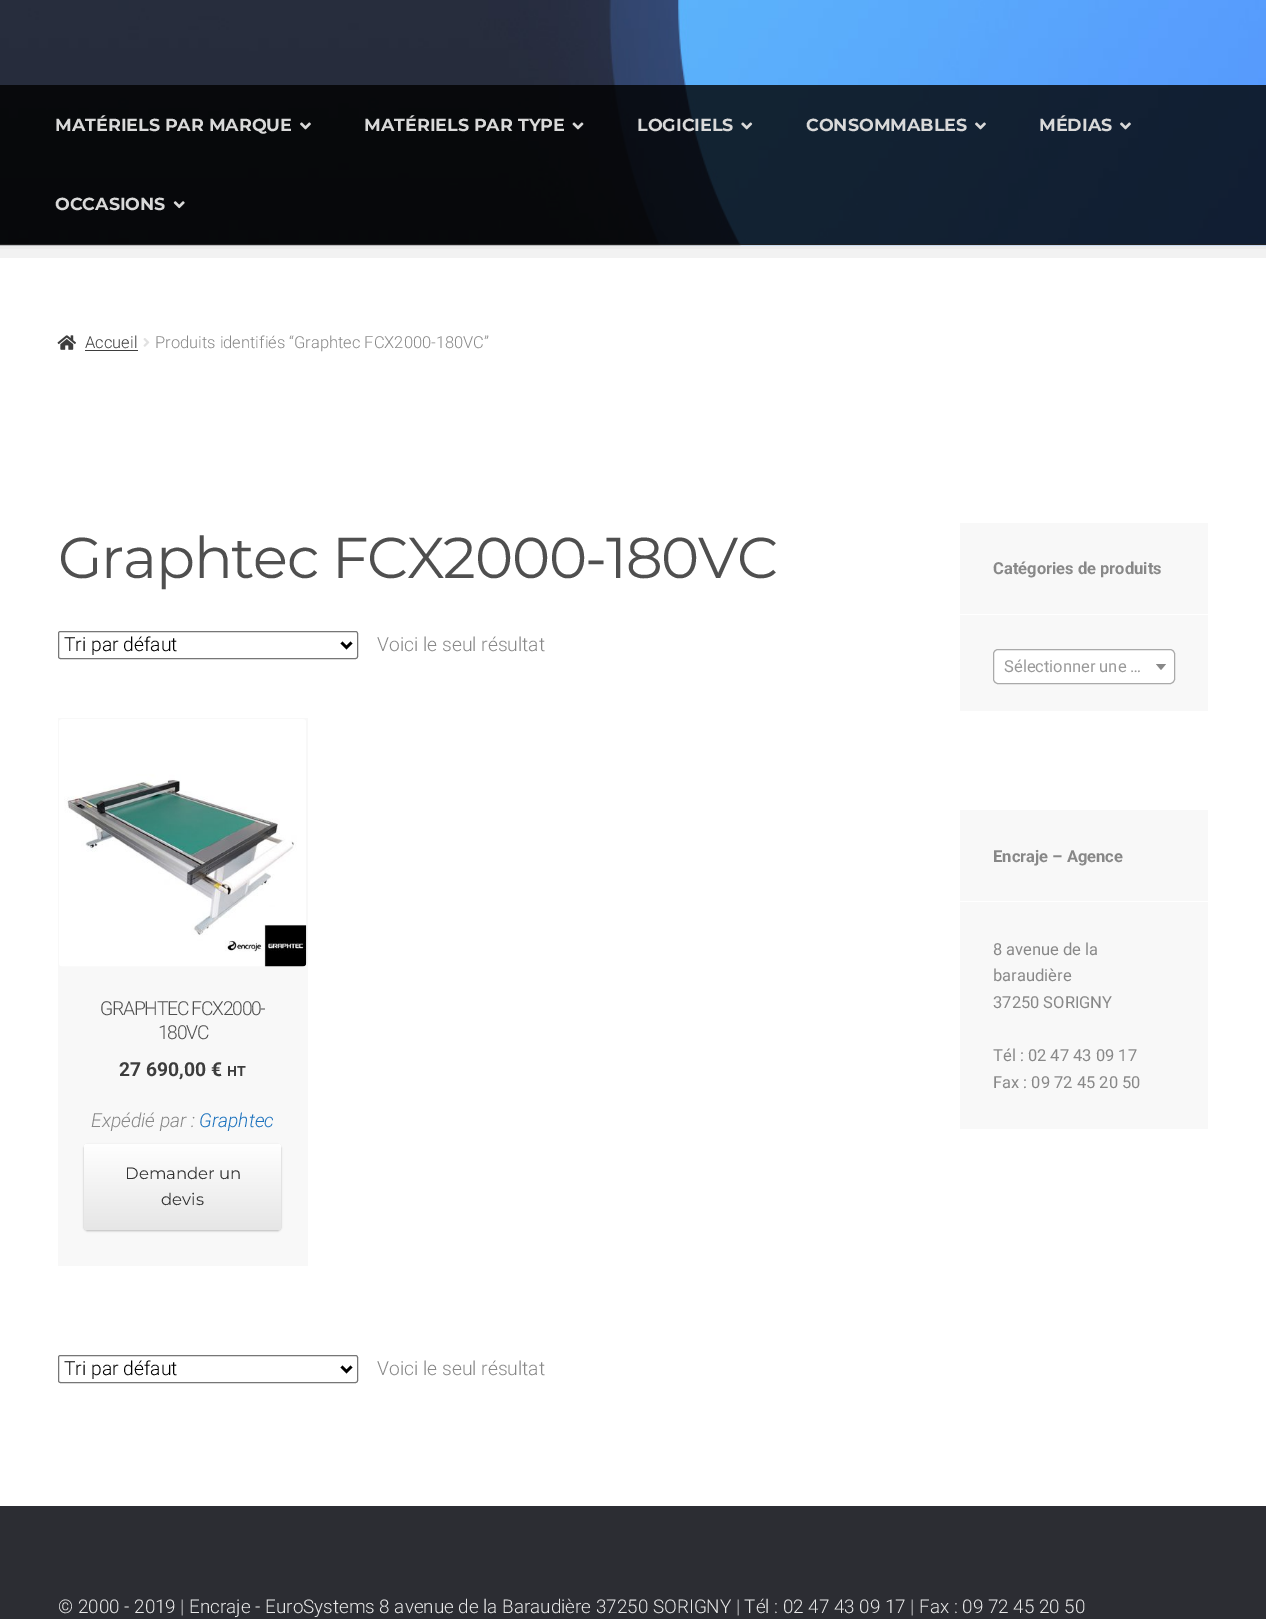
%!PS-Adobe-3.0
%%BoundingBox: 0 0 1266 1619
%%LanguageLevel: 3
%%Pages: 1
%%EndComments
%%BeginProlog
/setalpha { dup .setfillconstantalpha .setstrokeconstantalpha } def
/rrect { 5 dict begin { /r /h /w /y /x } { exch def } forall
  x r add y moveto x w add y 2 copy h add r arct x w add y h add x 1 index r arct
  x y h add x y r arct x y 2 copy exch w add exch r arct closepath end } def
/softshadow { 12 dict begin { /a /b /q /h /w /y /x } { exch def } forall gsave /was 0 def
  9 -2 -9 { dup b mul 4 div /e exch def 1 sub .425 mul 2.718 exch exp 1 add a .99 .min exch div /now exch def
    1 1 now sub 1 was sub div sub setalpha /was now def
    w h .min e 2 mul add 0 gt { x e sub y e sub w e 2 mul add h e 2 mul add
      q e add b .6 mul add w h .min 2 div e add .min 0 .max rrect fill } if } for grestore end } def
/drawimage { 5 dict begin { /h /w /y /x /name } { exch def } forall
  gsave x y translate w h scale
  w h 8 [w 0 0 h 0 0] name (r) file false 3 colorimage grestore end } def
%%EndProlog
%%BeginSetup
<< /PageSize [1266 1619] /PageUsesTransparency true >> setpagedevice
%%EndSetup
%%Page: 1 1
0 .pushpdf14devicefilter
0 1619 translate 1 -1 scale
4 setmiterlimit
1 setgray
0 0 1266 1619 rectfill
0.976 setgray
0 245 1266 4 rectfill
(images/1.raw) 0 0 1266 246 drawimage
0.141 setgray
0 244 1266 1 rectfill
0.05 setalpha
0 setgray
newpath -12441 244 moveto -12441 258 lineto 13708 258 lineto 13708 99 lineto 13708 244 lineto closepath fill
0.8 setalpha
0 85 1266 159 rectfill
1 setalpha
(images/2.raw) 300 122 11 8 drawimage
(images/3.raw) 572 122 12 8 drawimage
(images/4.raw) 741 122 12 8 drawimage
(images/5.raw) 975 122 11 8 drawimage
(images/6.raw) 1120 122 11 8 drawimage
(images/7.raw) 173 201 12 8 drawimage
(images/8.raw) 57 335 19 15 drawimage
0.239 setgray
85 350 53 1 rectfill
(images/9.raw) 143 338 7 9 drawimage
0.463 setgray
58.5 631.5 299 27 2 rrect stroke
0 setgray
2.5 setlinewidth
newpath 341.5 642.5 moveto 346.5 647.5 lineto 351.5 642.5 lineto stroke
0.973 setgray
58 718 250 548 rectfill
(images/10.raw) 59 719 248 248 drawimage
0 setgray
84 1145 197 86 4 1 0.25 softshadow
gsave 84 1144 197 86 4 rrect clip newpath
<< /ShadingType 2 /ColorSpace /DeviceRGB /Coords [183 1144 183 1230] /Extend [true true] /Function << /FunctionType 2 /Domain [0 1] /C0 [1 1 1] /C1 [0.902 0.902 0.902] /N 1 >> >> shfill grestore
0.463 setgray
1 setlinewidth
58.5 1355.5 299 27 2 rrect stroke
0 setgray
2.5 setlinewidth
newpath 341.5 1366.5 moveto 346.5 1371.5 lineto 351.5 1366.5 lineto stroke
0.973 setgray
960 523 248 188 rectfill
1 setgray
960 614 248 1 rectfill
993.5 649.5 181 34 4.5 rrect gsave fill grestore
0.667 setgray
1 setlinewidth
stroke
0.533 setgray
newpath 1156 664 moveto 1166 664 lineto 1161 670 lineto closepath fill
0.973 setgray
960 810 248 319 rectfill
1 setgray
960 901 248 1 rectfill
0.173 0.176 0.2 setrgbcolor
0 1506 1266 113 rectfill
/Montserrat-Bold [17.5 0 0 -17.5 0 0] selectfont
0.851 setgray
55 131 moveto (MATÉRIELS PAR MARQUE) show
364 131 moveto (MATÉRIELS PAR TYPE) show
637 131 moveto (LOGICIELS) show
806 131 moveto (CONSOMMABLES) show
1039 131 moveto (MÉDIAS) show
55 210 moveto (OCCASIONS) show
/Roboto-Light [16.5 0 0 -16.5 0 0] selectfont
0.239 setgray
85 348 moveto (Accueil) show
0.533 setgray
155 348 moveto (Produits identifiés “Graphtec FCX2000-180VC”) show
/Montserrat-Regular [57.6 0 0 -57.6 0 0] selectfont
0.31 setgray
58 578 moveto -1.25 0 (Graphtec FCX2000-180VC) ashow
/Roboto-Light [19.25 0 0 -19.25 0 0] selectfont
0 setgray
64 651 moveto (Tri par défaut) show
0.533 setgray
377 651 moveto (Voici le seul résultat) show
0.31 setgray
100 1015 moveto -1.25 0 (GRAPHTEC FCX2000-) ashow
158 1039 moveto -1.25 0 (180VC) ashow
/Roboto-Bold [19.25 0 0 -19.25 0 0] selectfont
0.239 setgray
119 1076 moveto (27 690,00 €) show
/Roboto-Bold [14 0 0 -14 0 0] selectfont
227 1076 moveto (HT) show
/Roboto-LightItalic [19.25 0 0 -19.25 0 0] selectfont
0.533 setgray
91 1127 moveto (Expédié par :) show
0.118 0.451 0.745 setrgbcolor
199 1127 moveto (Graphtec) show
/Montserrat-Regular [16.5 0 0 -16.5 0 0] selectfont
0.2 setgray
125 1179 moveto (Demander un) show
161 1205 moveto (devis) show
/Roboto-Light [19.25 0 0 -19.25 0 0] selectfont
0 setgray
64 1375 moveto (Tri par défaut) show
0.533 setgray
377 1375 moveto (Voici le seul résultat) show
/Roboto-Bold [16.5 0 0 -16.5 0 0] selectfont
993 574 moveto (Catégories de produits) show
/Roboto-Regular [16.5 0 0 -16.5 0 0] selectfont
0.6 setgray
1004 672 moveto (Sélectionner une …) show
/Roboto-Bold [16.5 0 0 -16.5 0 0] selectfont
0.533 setgray
993 862 moveto (Encraje – Agence) show
/Roboto-Regular [16.5 0 0 -16.5 0 0] selectfont
993 955 moveto (8 avenue de la) show
993 981 moveto (baraudière) show
993 1008 moveto (37250 SORIGNY) show
993 1061 moveto (Tél : 02 47 43 09 17) show
993 1088 moveto (Fax : 09 72 45 20 50) show
/Roboto-Light [18.85 0 0 -18.85 0 0] selectfont
0.91 setgray
58 1613 moveto (© 2000 - 2019 | Encraje - EuroSystems 8 avenue de la Baraudière 37250 SORIGNY | Tél : 02 47 43 09 17 | Fax : 09 72 45 20 50) show
.poppdf14devicefilter showpage
%%EOF
